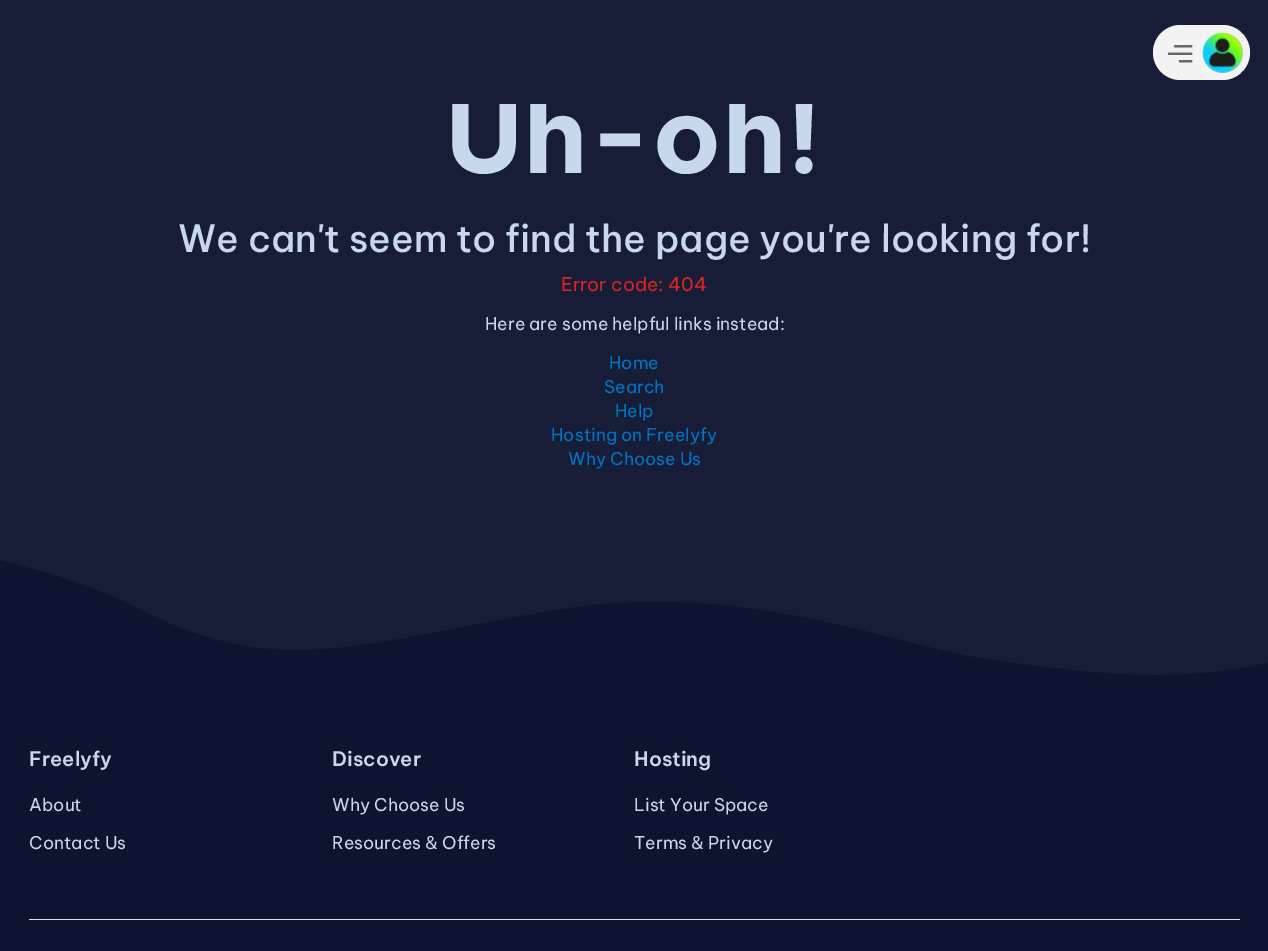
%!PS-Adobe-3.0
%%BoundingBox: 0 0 1268 951
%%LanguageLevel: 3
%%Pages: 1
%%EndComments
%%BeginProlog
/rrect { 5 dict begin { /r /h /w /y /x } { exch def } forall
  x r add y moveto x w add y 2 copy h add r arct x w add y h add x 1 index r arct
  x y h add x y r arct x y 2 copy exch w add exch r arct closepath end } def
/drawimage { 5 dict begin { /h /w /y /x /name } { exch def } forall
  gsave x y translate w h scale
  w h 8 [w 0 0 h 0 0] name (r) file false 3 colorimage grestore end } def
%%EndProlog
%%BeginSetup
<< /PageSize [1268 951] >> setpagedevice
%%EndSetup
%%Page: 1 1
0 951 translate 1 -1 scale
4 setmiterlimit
0.09 0.114 0.216 setrgbcolor
0 0 1268 951 rectfill
0.953 setgray
1153 25 97 55 27.5 rrect fill
(images/1.raw) 1168 45 25 18 drawimage
0.733 setgray
newpath 1223 53 20 0 360 arc closepath fill
(images/2.raw) 1202 32 41 41 drawimage
0.055 0.078 0.184 setrgbcolor
0 736 1268 215 rectfill
newpath -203 535 moveto -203 535 0 537 141 610 curveto 282 682 365 641 557 610 curveto 748 578 899 649 999 661 curveto 1099 674 1192 689 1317 650 curveto 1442 610 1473 610 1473 610 curveto 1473 736 lineto -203 736 lineto closepath fill
0.878 setgray
29 919 1211 1 rectfill
/BeVietnamPro-Bold [106 0 0 -106 0 0] selectfont
0.78 0.847 0.922 setrgbcolor
445 173 moveto (Uh-oh!) show
0.09 0.114 0.216 setrgbcolor
452 92 362 12 rectfill
/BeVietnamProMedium-Medium [37.5 0 0 -37.5 0 0] selectfont
0.78 0.847 0.922 setrgbcolor
178 252 moveto (We can't seem to find the page you're looking for!) show
/BeVietnamPro-Regular [18.75 0 0 -18.75 0 0] selectfont
0.859 0.141 0.141 setrgbcolor
561 291 moveto (Error code: 404) show
/BeVietnamPro-Regular [17.5 0 0 -17.5 0 0] selectfont
0.78 0.847 0.922 setrgbcolor
485 330 moveto (Here are some helpful links instead:) show
0 0.455 0.761 setrgbcolor
609 369 moveto (Home) show
604 393 moveto (Search) show
615 417 moveto (Help) show
551 441 moveto (Hosting on Freelyfy) show
568 465 moveto (Why Choose Us) show
/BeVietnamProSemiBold-SemiBold [20 0 0 -20 0 0] selectfont
0.78 0.847 0.922 setrgbcolor
29 766 moveto (Freelyfy) show
/BeVietnamPro-Regular [17.5 0 0 -17.5 0 0] selectfont
29 811 moveto (About) show
29 849 moveto (Contact Us) show
/BeVietnamProSemiBold-SemiBold [20 0 0 -20 0 0] selectfont
332 766 moveto (Discover) show
/BeVietnamPro-Regular [17.5 0 0 -17.5 0 0] selectfont
332 811 moveto (Why Choose Us) show
332 849 moveto (Resources & Offers) show
/BeVietnamProSemiBold-SemiBold [20 0 0 -20 0 0] selectfont
634 766 moveto (Hosting) show
/BeVietnamPro-Regular [17.5 0 0 -17.5 0 0] selectfont
634 811 moveto (List Your Space) show
634 849 moveto (Terms & Privacy) show
showpage
%%EOF
